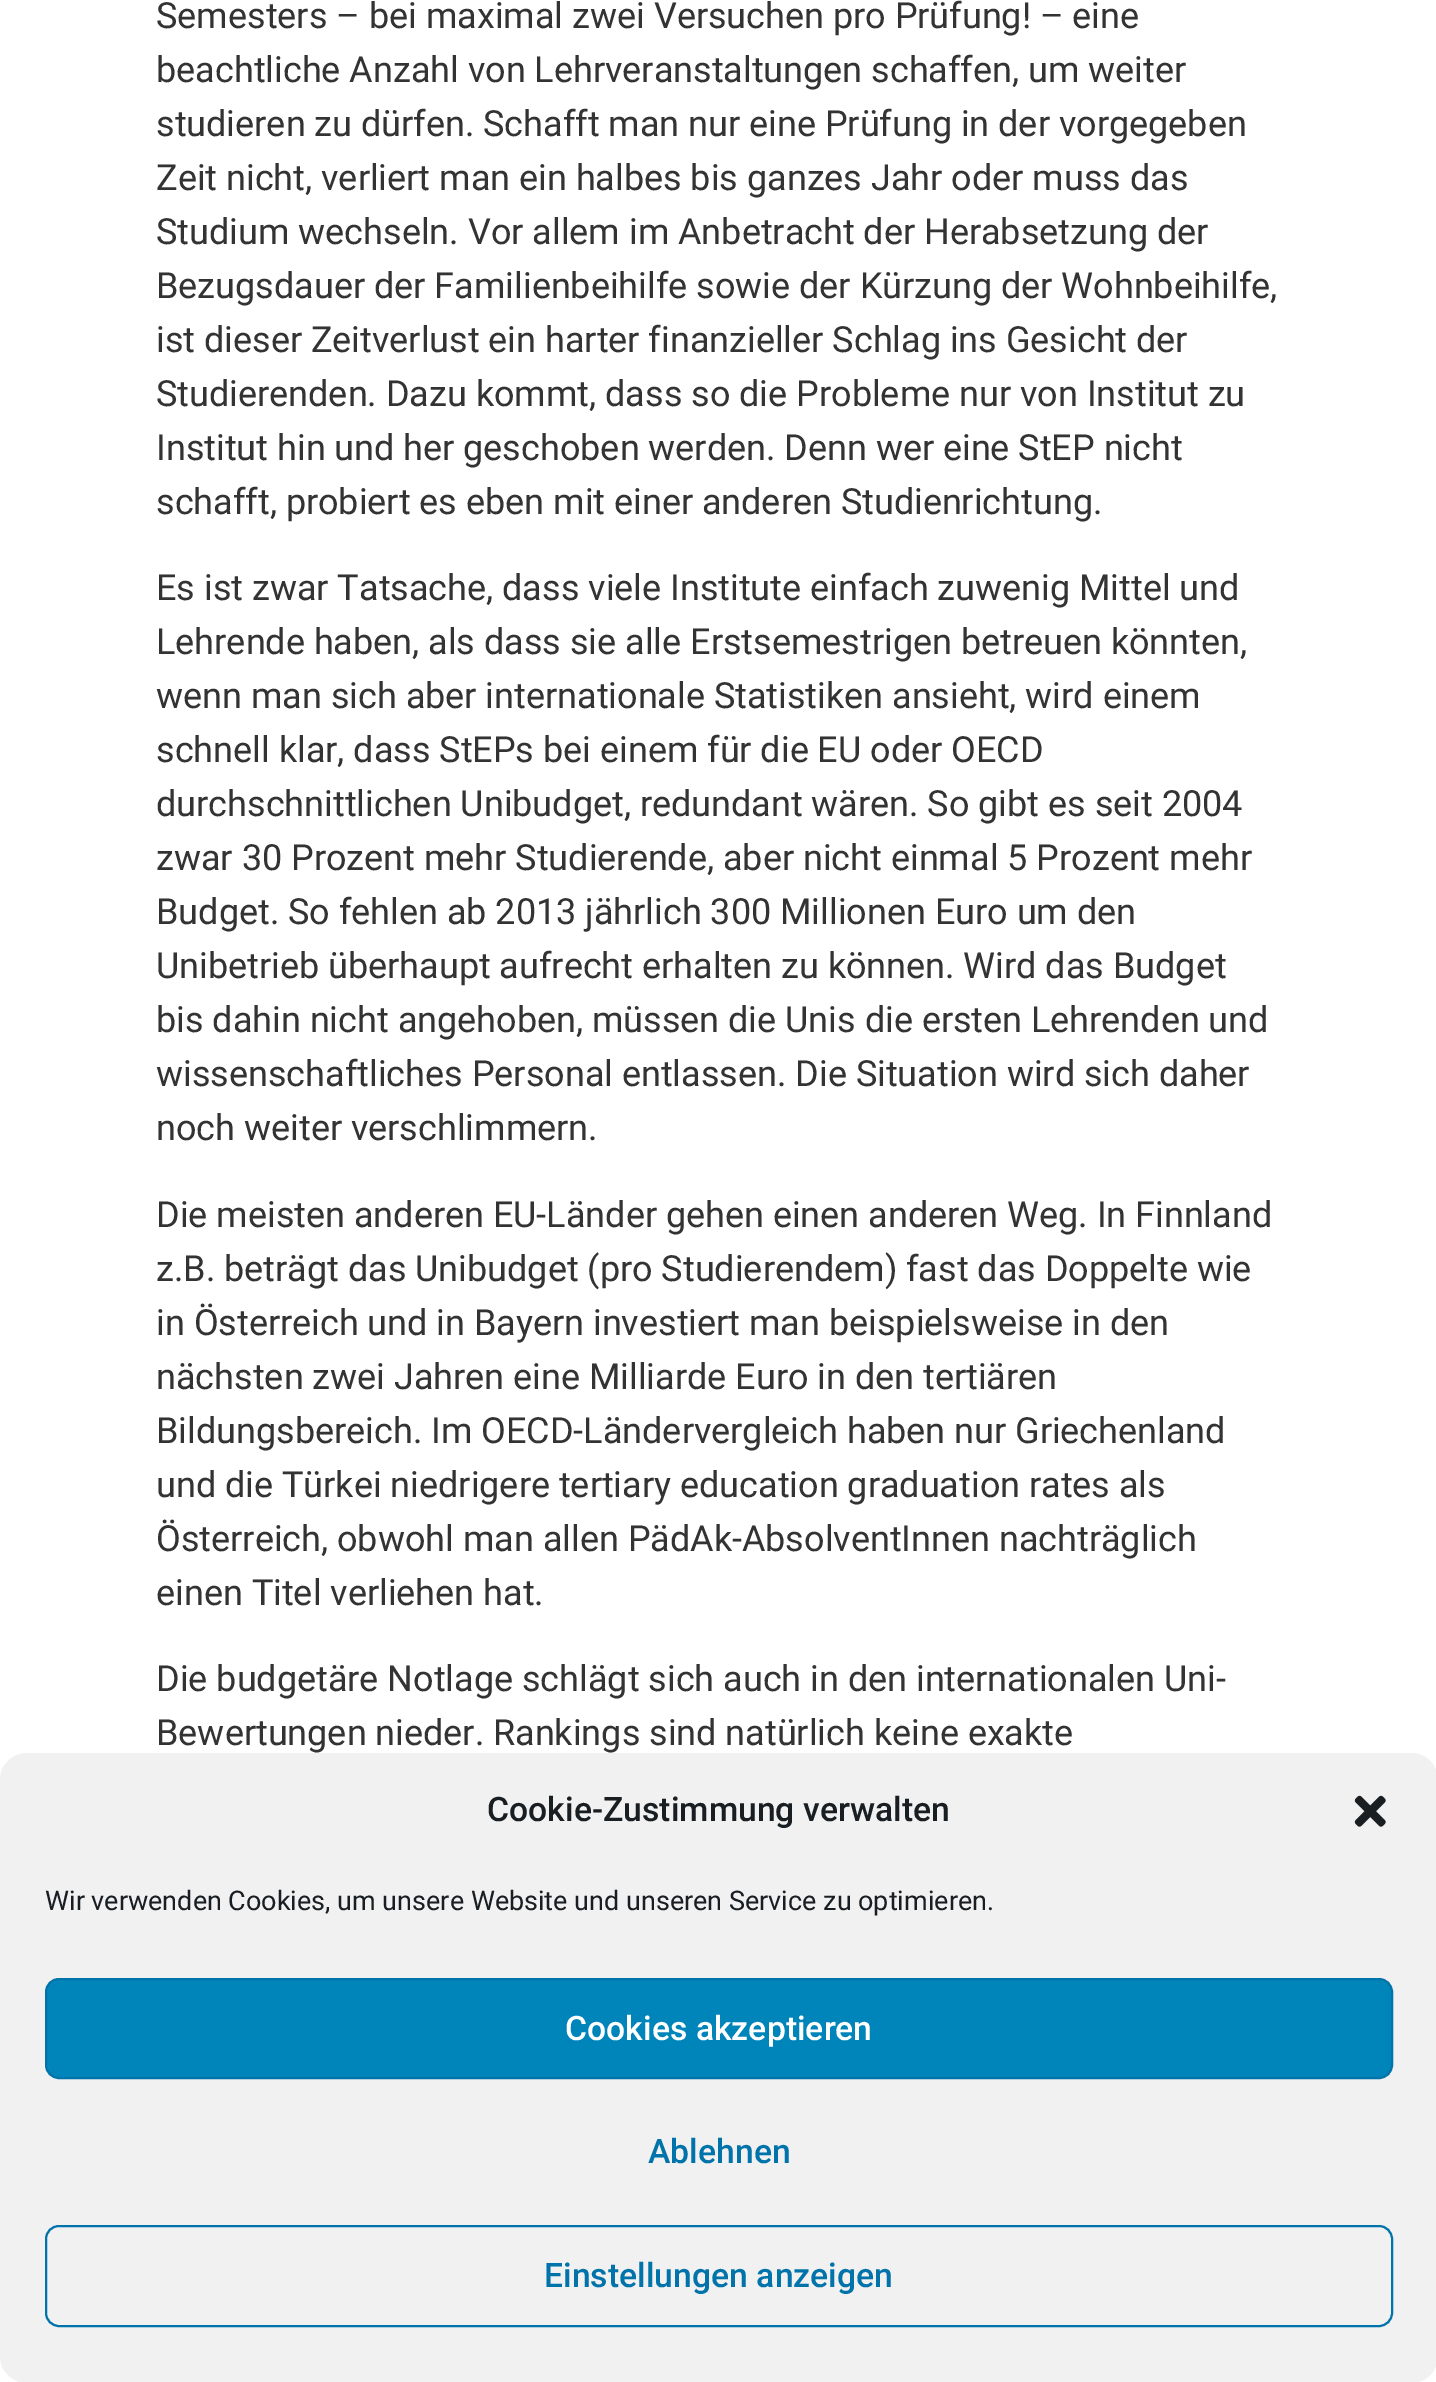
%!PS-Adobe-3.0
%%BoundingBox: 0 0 1436 2382
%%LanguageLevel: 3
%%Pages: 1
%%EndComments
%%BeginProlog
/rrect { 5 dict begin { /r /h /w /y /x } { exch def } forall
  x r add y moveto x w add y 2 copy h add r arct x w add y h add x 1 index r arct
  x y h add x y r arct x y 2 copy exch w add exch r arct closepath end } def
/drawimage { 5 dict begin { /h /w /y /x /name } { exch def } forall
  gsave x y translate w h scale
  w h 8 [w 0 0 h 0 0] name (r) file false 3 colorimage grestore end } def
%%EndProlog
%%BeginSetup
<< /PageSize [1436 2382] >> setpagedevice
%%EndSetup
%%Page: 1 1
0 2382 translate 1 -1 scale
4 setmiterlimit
1 setgray
0 0 1436 2382 rectfill
0.945 setgray
0 1753 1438 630 27 rrect fill
(images/1.raw) 1354 1795 32 32 drawimage
0 0.522 0.729 setrgbcolor
46 1979 1346 99 13 rrect gsave fill grestore
0 0.451 0.667 setrgbcolor
2 setlinewidth
stroke
46 2226 1346 100 13 rrect stroke
/Roboto-Regular [36 0 0 -36 0 0] selectfont
0.2 setgray
156 28 moveto (Semesters – bei maximal zwei Versuchen pro Prüfung! – eine) show
156 82 moveto (beachtliche Anzahl von Lehrveranstaltungen schaffen, um weiter) show
156 136 moveto (studieren zu dürfen. Schafft man nur eine Prüfung in der vorgegeben) show
156 190 moveto (Zeit nicht, verliert man ein halbes bis ganzes Jahr oder muss das) show
156 244 moveto (Studium wechseln. Vor allem im Anbetracht der Herabsetzung der) show
156 298 moveto (Bezugsdauer der Familienbeihilfe sowie der Kürzung der Wohnbeihilfe,) show
156 352 moveto (ist dieser Zeitverlust ein harter finanzieller Schlag ins Gesicht der) show
156 406 moveto (Studierenden. Dazu kommt, dass so die Probleme nur von Institut zu) show
156 460 moveto (Institut hin und her geschoben werden. Denn wer eine StEP nicht) show
156 514 moveto (schafft, probiert es eben mit einer anderen Studienrichtung.) show
156 600 moveto (Es ist zwar Tatsache, dass viele Institute einfach zuwenig Mittel und) show
156 654 moveto (Lehrende haben, als dass sie alle Erstsemestrigen betreuen könnten,) show
156 708 moveto (wenn man sich aber internationale Statistiken ansieht, wird einem) show
156 762 moveto (schnell klar, dass StEPs bei einem für die EU oder OECD) show
156 816 moveto (durchschnittlichen Unibudget, redundant wären. So gibt es seit 2004) show
156 870 moveto (zwar 30 Prozent mehr Studierende, aber nicht einmal 5 Prozent mehr) show
156 924 moveto (Budget. So fehlen ab 2013 jährlich 300 Millionen Euro um den) show
156 978 moveto (Unibetrieb überhaupt aufrecht erhalten zu können. Wird das Budget) show
156 1032 moveto (bis dahin nicht angehoben, müssen die Unis die ersten Lehrenden und) show
156 1086 moveto (wissenschaftliches Personal entlassen. Die Situation wird sich daher) show
156 1140 moveto (noch weiter verschlimmern.) show
156 1227 moveto (Die meisten anderen EU-Länder gehen einen anderen Weg. In Finnland) show
156 1281 moveto (z.B. beträgt das Unibudget \(pro Studierendem\) fast das Doppelte wie) show
156 1335 moveto (in Österreich und in Bayern investiert man beispielsweise in den) show
156 1389 moveto (nächsten zwei Jahren eine Milliarde Euro in den tertiären) show
156 1443 moveto (Bildungsbereich. Im OECD-Ländervergleich haben nur Griechenland) show
156 1497 moveto (und die Türkei niedrigere tertiary education graduation rates als) show
156 1551 moveto (Österreich, obwohl man allen PädAk-AbsolventInnen nachträglich) show
156 1605 moveto (einen Titel verliehen hat.) show
156 1691 moveto (Die budgetäre Notlage schlägt sich auch in den internationalen Uni-) show
156 1745 moveto (Bewertungen nieder. Rankings sind natürlich keine exakte) show
/Roboto-Medium [33.75 0 0 -33.75 0 0] selectfont
0.098 0.118 0.137 setrgbcolor
487 1821 moveto (Cookie-Zustimmung verwalten) show
/Roboto-Regular [27 0 0 -27 0 0] selectfont
45 1910 moveto (Wir verwenden Cookies, um unsere Website und unseren Service zu optimieren.) show
/Roboto-Medium [33.75 0 0 -33.75 0 0] selectfont
1 setgray
565 2040 moveto (Cookies akzeptieren) show
0 0.451 0.667 setrgbcolor
648 2163 moveto (Ablehnen) show
544 2287 moveto (Einstellungen anzeigen) show
showpage
%%EOF
